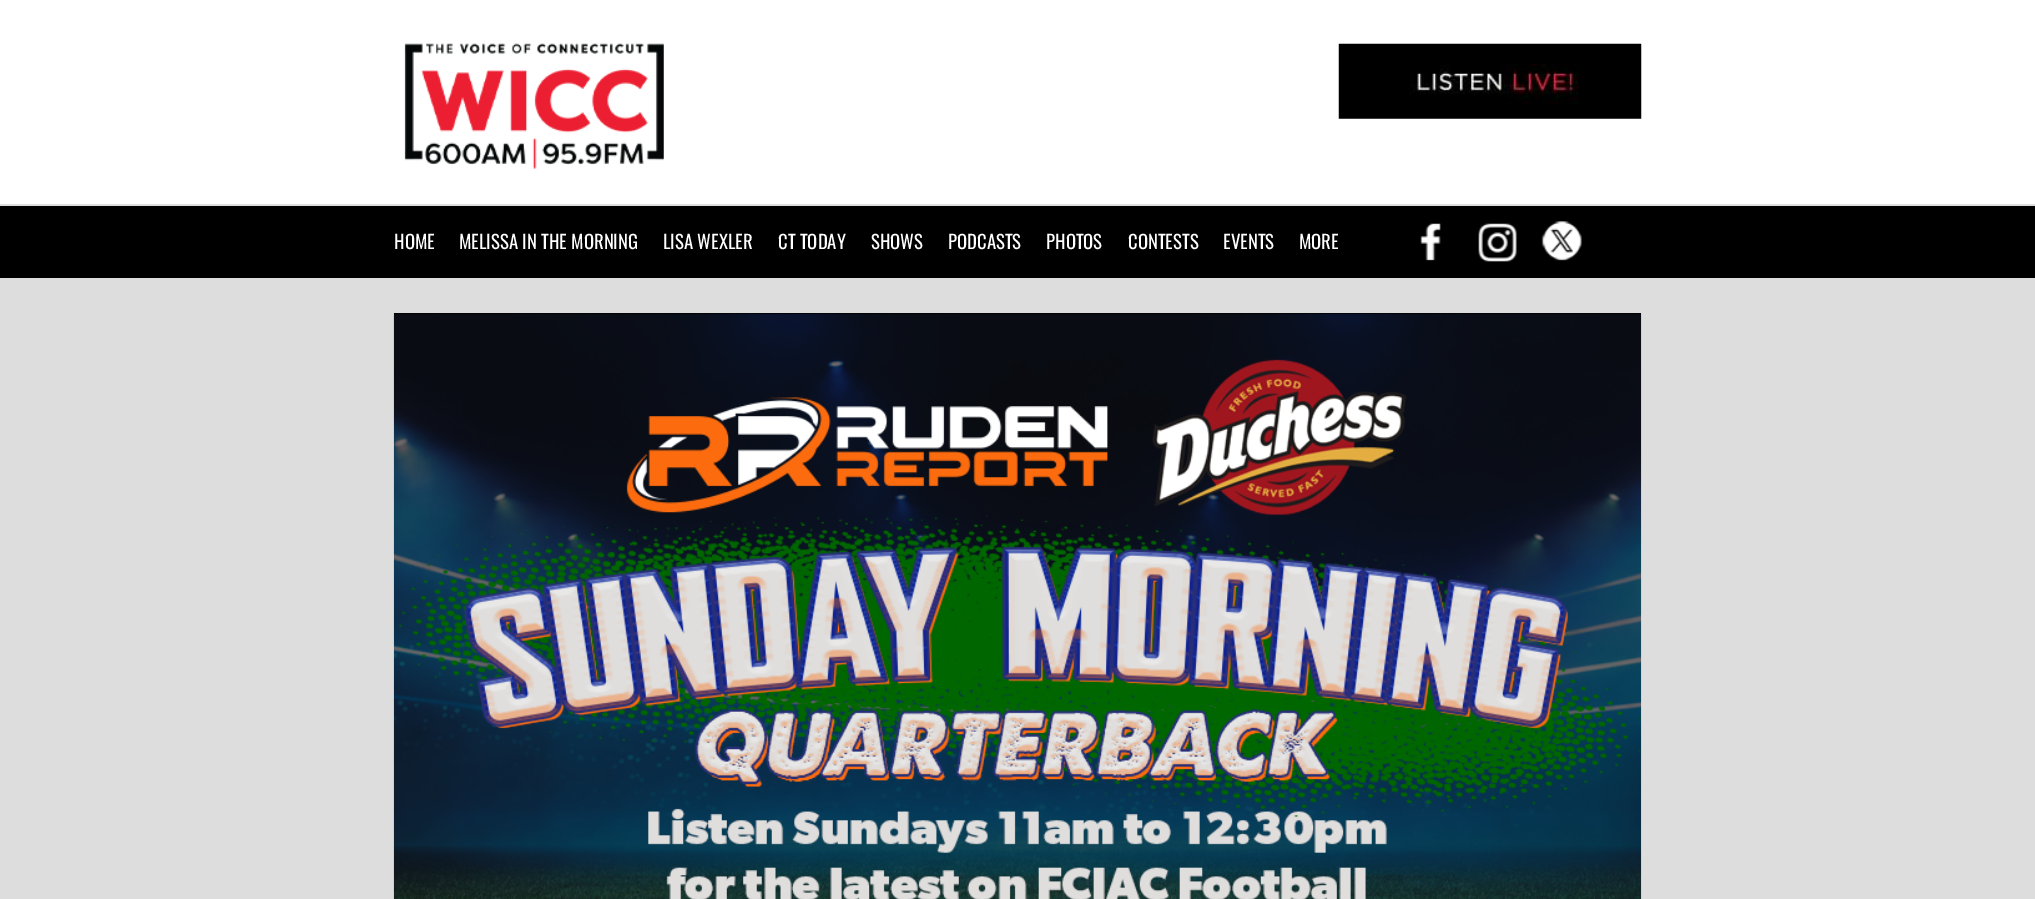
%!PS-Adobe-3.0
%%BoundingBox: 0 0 2035 899
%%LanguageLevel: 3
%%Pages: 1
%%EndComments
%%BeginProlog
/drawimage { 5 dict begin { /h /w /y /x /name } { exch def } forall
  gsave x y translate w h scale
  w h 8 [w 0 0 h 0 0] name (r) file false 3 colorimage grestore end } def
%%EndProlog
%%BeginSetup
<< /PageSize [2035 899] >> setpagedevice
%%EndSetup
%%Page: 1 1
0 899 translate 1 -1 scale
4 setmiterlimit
0.867 setgray
0 0 2035 899 rectfill
1 setgray
0 0 2035 204 rectfill
(images/1.raw) 404 43 260 126 drawimage
(images/2.raw) 1338 43 304 76 drawimage
0 setgray
0 206 2035 72 rectfill
(images/3.raw) 1420 223 21 38 drawimage
(images/4.raw) 1478 223 39 39 drawimage
(images/5.raw) 1541 221 41 40 drawimage
394 313 1247 1 rectfill
(images/6.raw) 393 313 1249 586 drawimage
/Oswald-Regular [18.75 0 0 -18.75 0 0] selectfont
1 setgray
394 249 moveto (HOME) show
459 249 moveto (MELISSA IN THE MORNING) show
663 249 moveto (LISA WEXLER) show
778 249 moveto (CT TODAY) show
871 249 moveto (SHOWS) show
948 249 moveto (PODCASTS) show
1046 249 moveto (PHOTOS) show
1128 249 moveto (CONTESTS) show
1223 249 moveto (EVENTS) show
1299 249 moveto (MORE) show
showpage
%%EOF
